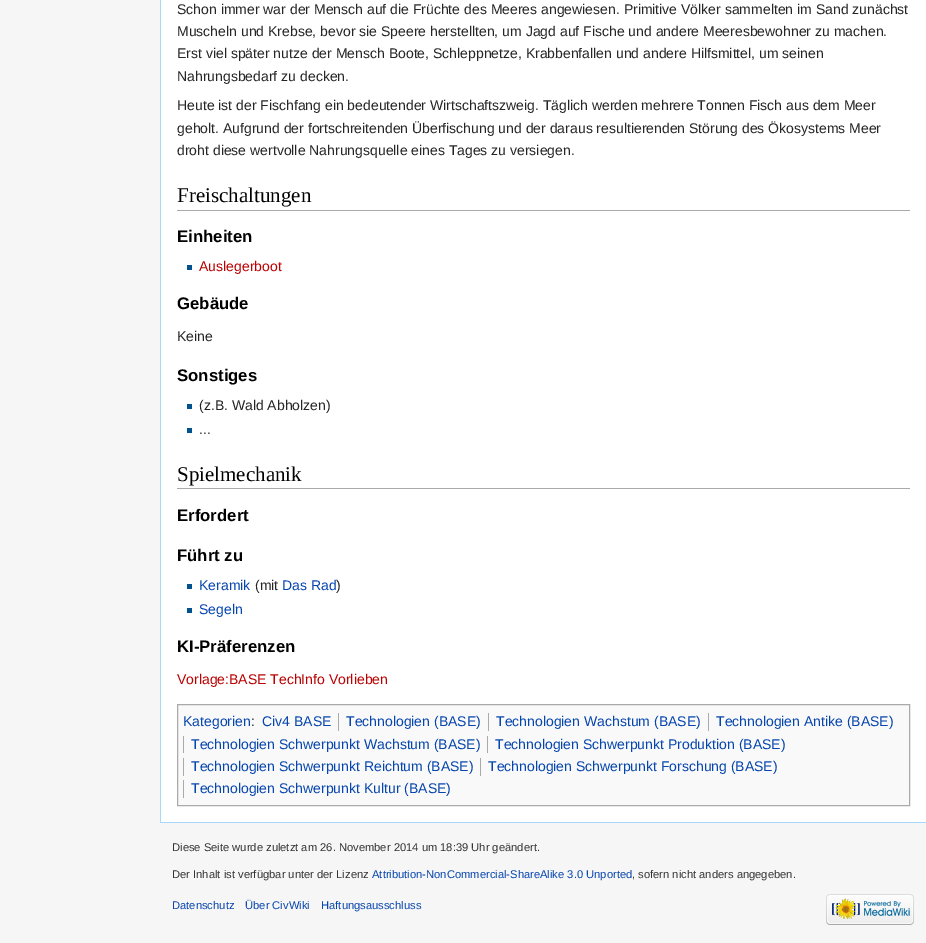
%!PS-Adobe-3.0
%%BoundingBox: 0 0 926 943
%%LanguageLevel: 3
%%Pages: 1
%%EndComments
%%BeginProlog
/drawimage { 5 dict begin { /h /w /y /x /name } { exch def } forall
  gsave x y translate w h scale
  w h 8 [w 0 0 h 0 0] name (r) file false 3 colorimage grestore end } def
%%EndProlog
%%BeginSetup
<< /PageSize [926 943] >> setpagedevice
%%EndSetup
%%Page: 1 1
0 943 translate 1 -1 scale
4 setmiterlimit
0.965 setgray
0 0 926 943 rectfill
1 setgray
161 0 765 822 rectfill
0.655 0.843 0.976 setrgbcolor
160 822 766 1 rectfill
160 0 1 823 rectfill
0.667 setgray
177 210 733 1 rectfill
0 0.322 0.549 setrgbcolor
187 265 5 5 rectfill
187 404 5 5 rectfill
187 428 5 5 rectfill
0.667 setgray
177 488 733 1 rectfill
0 0.322 0.549 setrgbcolor
187 584 5 5 rectfill
187 608 5 5 rectfill
0.976 setgray
newpath 177.5 704.5 moveto 909.5 704.5 lineto 909.5 805.5 lineto 177.5 805.5 lineto closepath gsave fill grestore
0.667 setgray
stroke
338 713 1 18 rectfill
488 713 1 18 rectfill
708 713 1 18 rectfill
183 736 1 17 rectfill
487 736 1 17 rectfill
183 758 1 18 rectfill
480 758 1 18 rectfill
183 780 1 18 rectfill
(images/1.raw) 826 894 88 31 drawimage
/LiberationSans-Regular [14 0 0 -14 0 0] selectfont
0.145 setgray
177 14 moveto (Schon immer war der Mensch auf die Früchte des Meeres angewiesen. Primitive Völker sammelten im Sand zunächst) show
177 36 moveto (Muscheln und Krebse, bevor sie Speere herstellten, um Jagd auf Fische und andere Meeresbewohner zu machen.) show
177 58 moveto (Erst viel später nutze der Mensch Boote, Schleppnetze, Krabbenfallen und andere Hilfsmittel, um seinen) show
177 81 moveto (Nahrungsbedarf zu decken.) show
177 110 moveto (Heute ist der Fischfang ein bedeutender Wirtschaftszweig. Täglich werden mehrere Tonnen Fisch aus dem Meer) show
177 133 moveto (geholt. Aufgrund der fortschreitenden Überfischung und der daraus resultierenden Störung des Ökosystems Meer) show
177 155 moveto (droht diese wertvolle Nahrungsquelle eines Tages zu versiegen.) show
/LiberationSerif-Regular [21 0 0 -21 0 0] selectfont
0 setgray
177 202 moveto (Freischaltungen) show
/LiberationSans-Bold [16.75 0 0 -16.75 0 0] selectfont
177 242 moveto (Einheiten) show
/LiberationSans-Regular [14 0 0 -14 0 0] selectfont
0.729 0 0 setrgbcolor
199 271 moveto (Auslegerboot) show
/LiberationSans-Bold [16.75 0 0 -16.75 0 0] selectfont
0 setgray
177 309 moveto (Gebäude) show
/LiberationSans-Regular [14 0 0 -14 0 0] selectfont
0.145 setgray
177 341 moveto (Keine) show
/LiberationSans-Bold [16.75 0 0 -16.75 0 0] selectfont
0 setgray
177 381 moveto (Sonstiges) show
/LiberationSans-Regular [14 0 0 -14 0 0] selectfont
0.145 setgray
199 410 moveto (\(z.B. Wald Abholzen\)) show
199 434 moveto (...) show
/LiberationSerif-Regular [21 0 0 -21 0 0] selectfont
0 setgray
177 481 moveto (Spielmechanik) show
/LiberationSans-Bold [16.75 0 0 -16.75 0 0] selectfont
177 521 moveto (Erfordert) show
177 561 moveto (Führt zu) show
/LiberationSans-Regular [14 0 0 -14 0 0] selectfont
0.024 0.271 0.678 setrgbcolor
199 590 moveto (Keramik) show
0.145 setgray
255 590 moveto (\(mit) show
0.024 0.271 0.678 setrgbcolor
282 590 moveto (Das Rad) show
0.145 setgray
336 590 moveto (\)) show
0.024 0.271 0.678 setrgbcolor
199 614 moveto (Segeln) show
/LiberationSans-Bold [16.75 0 0 -16.75 0 0] selectfont
0 setgray
177 652 moveto (KI-Präferenzen) show
/LiberationSans-Regular [14 0 0 -14 0 0] selectfont
0.729 0 0 setrgbcolor
177 684 moveto (Vorlage:BASE TechInfo Vorlieben) show
0.024 0.271 0.678 setrgbcolor
183 726 moveto (Kategorien) show
262 726 moveto (Civ4 BASE) show
346 726 moveto (Technologien \(BASE\)) show
496 726 moveto (Technologien Wachstum \(BASE\)) show
716 726 moveto (Technologien Antike \(BASE\)) show
191 749 moveto (Technologien Schwerpunkt Wachstum \(BASE\)) show
495 749 moveto (Technologien Schwerpunkt Produktion \(BASE\)) show
191 771 moveto (Technologien Schwerpunkt Reichtum \(BASE\)) show
488 771 moveto (Technologien Schwerpunkt Forschung \(BASE\)) show
191 793 moveto (Technologien Schwerpunkt Kultur \(BASE\)) show
0.145 setgray
251 726 moveto (:) show
/LiberationSans-Regular [11.2 0 0 -11.2 0 0] selectfont
0.2 setgray
172 851 moveto (Diese Seite wurde zuletzt am 26. November 2014 um 18:39 Uhr geändert.) show
172 878 moveto (Der Inhalt ist verfügbar unter der Lizenz) show
0.024 0.271 0.678 setrgbcolor
372 878 moveto (Attribution-NonCommercial-ShareAlike 3.0 Unported) show
0.2 setgray
632 878 moveto (, sofern nicht anders angegeben.) show
0.024 0.271 0.678 setrgbcolor
172 909 moveto (Datenschutz) show
245 909 moveto (Über CivWiki) show
321 909 moveto (Haftungsausschluss) show
showpage
%%EOF
